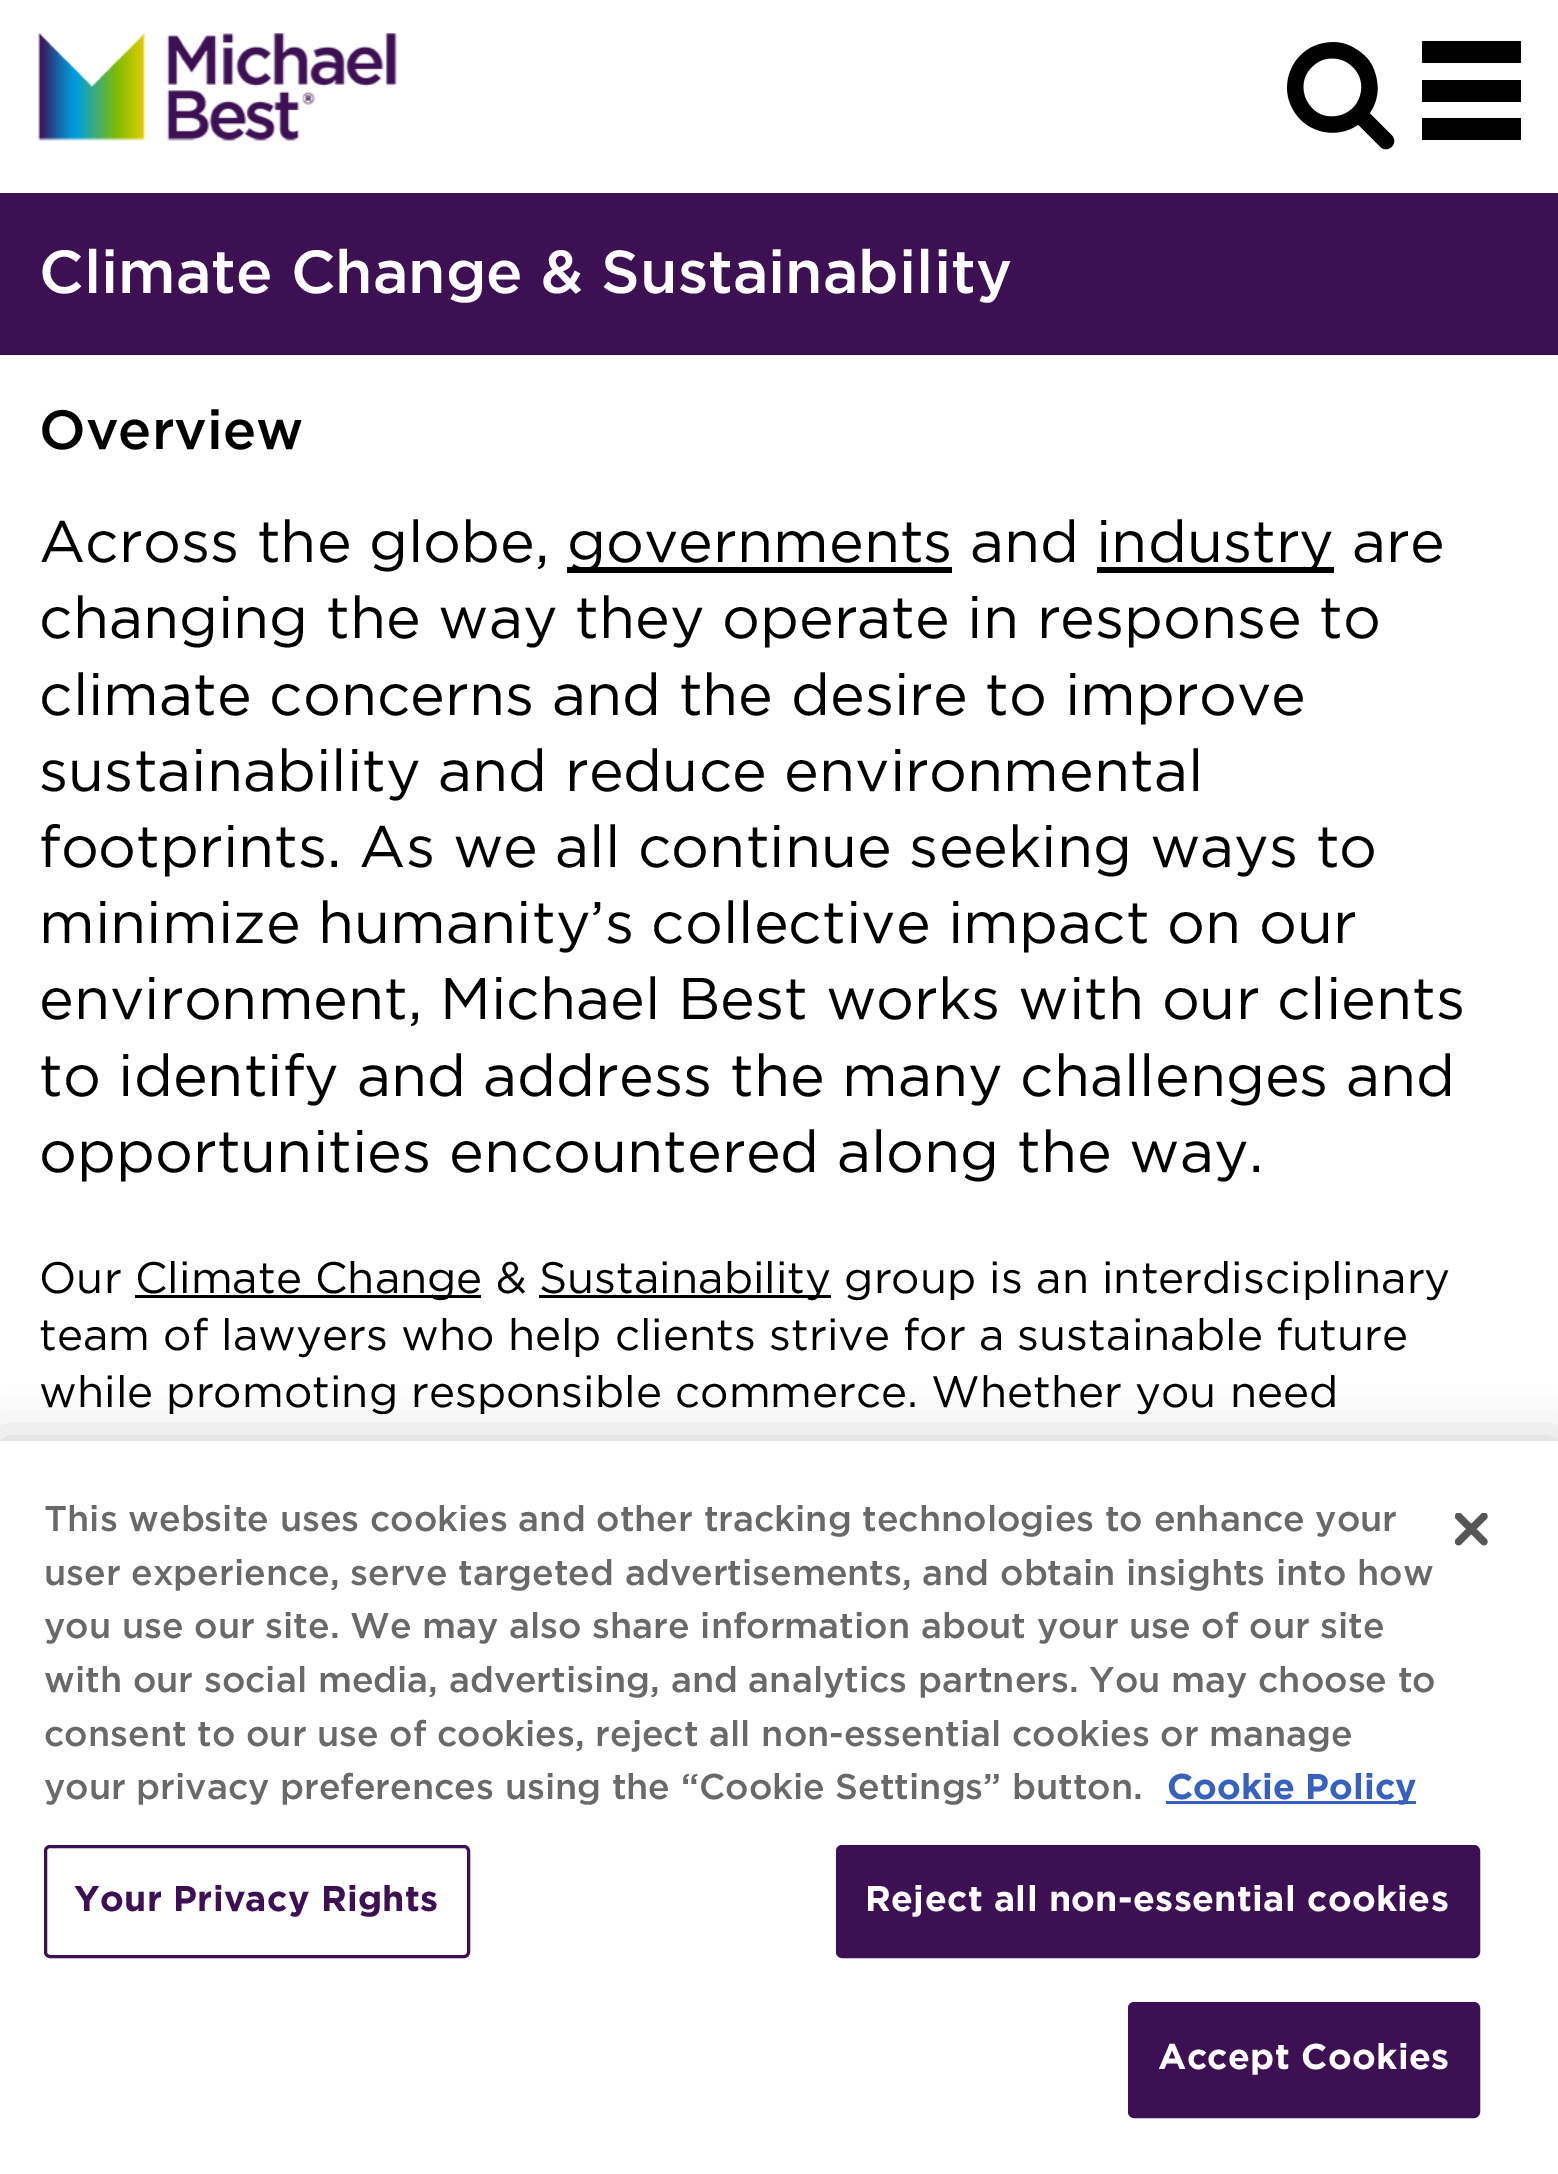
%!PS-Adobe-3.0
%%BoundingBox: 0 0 1558 2174
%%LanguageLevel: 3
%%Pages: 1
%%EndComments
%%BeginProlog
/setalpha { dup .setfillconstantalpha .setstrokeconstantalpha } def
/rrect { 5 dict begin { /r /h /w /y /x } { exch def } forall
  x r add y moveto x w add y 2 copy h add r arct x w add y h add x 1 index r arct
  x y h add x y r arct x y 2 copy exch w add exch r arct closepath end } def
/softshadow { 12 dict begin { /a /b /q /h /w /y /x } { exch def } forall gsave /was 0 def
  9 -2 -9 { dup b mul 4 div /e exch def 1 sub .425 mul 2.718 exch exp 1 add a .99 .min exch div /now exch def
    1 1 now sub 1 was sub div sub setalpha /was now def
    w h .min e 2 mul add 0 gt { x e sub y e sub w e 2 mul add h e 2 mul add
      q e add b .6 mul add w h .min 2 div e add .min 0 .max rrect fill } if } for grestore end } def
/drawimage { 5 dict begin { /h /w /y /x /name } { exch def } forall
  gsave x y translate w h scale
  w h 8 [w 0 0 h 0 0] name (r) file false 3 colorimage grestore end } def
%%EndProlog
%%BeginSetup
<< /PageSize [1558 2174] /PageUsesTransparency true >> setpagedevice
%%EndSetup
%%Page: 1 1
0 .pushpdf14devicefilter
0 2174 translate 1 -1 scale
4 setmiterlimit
1 setgray
0 0 1558 2174 rectfill
(images/1.raw) 38 33 360 108 drawimage
(images/2.raw) 1287 42 108 108 drawimage
0 setgray
1422 41 99 22 rectfill
1422 80 99 22 rectfill
1422 118 99 22 rectfill
0.235 0.063 0.325 setrgbcolor
0 193 1558 162 rectfill
0 setgray
567 567 385 6 rectfill
1097 567 237 6 rectfill
135 1295 346 3 rectfill
539 1295 292 3 rectfill
0 1441 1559 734 0 25 0.2 softshadow
1 setgray
0 1441 1558 733 rectfill
0.22 0.376 0.745 setrgbcolor
1166 1801 250 3 rectfill
0.235 0.063 0.325 setrgbcolor
3 setlinewidth
45.5 1846.5 423 110 4.5 rrect stroke
837.5 1846.5 641 110 4.5 rrect gsave fill grestore
stroke
1129.5 2003.5 349 113 4.5 rrect gsave fill grestore
stroke
(images/3.raw) 1455 1513 33 33 drawimage
/Gotham-Medium [60.5 0 0 -60.5 0 0] selectfont
1 setgray
39 293 moveto (Climate Change & Sustainability) show
/Gotham-Medium [55 0 0 -55 0 0] selectfont
0 setgray
39 449 moveto (Overview) show
/Gotham-Regular [58.7 0 0 -58.7 0 0] selectfont
39 562 moveto (Across the globe,) show
567 562 moveto (governments and) show
1096 562 moveto (industry are) show
39 638 moveto (changing the way they operate in response to) show
39 715 moveto (climate concerns and the desire to improve) show
39 791 moveto (sustainability and reduce environmental) show
39 867 moveto (footprints. As we all continue seeking ways to) show
39 943 moveto (minimize humanity’s collective impact on our) show
39 1019 moveto (environment, Michael Best works with our clients) show
39 1096 moveto (to identify and address the many challenges and) show
39 1172 moveto (opportunities encountered along the way.) show
/Gotham-Regular [44 0 0 -44 0 0] selectfont
39 1293 moveto (Our) show
135 1293 moveto (Climate Change &) show
539 1293 moveto (Sustainability group is an interdisciplinary) show
39 1350 moveto (team of lawyers who help clients strive for a sustainable future) show
39 1407 moveto (while promoting responsible commerce. Whether you need) show
/Gotham-Medium [35.75 0 0 -35.75 0 0] selectfont
0.412 setgray
44 1531 moveto (This website uses cookies and other tracking technologies to enhance your) show
44 1585 moveto (user experience, serve targeted advertisements, and obtain insights into how) show
44 1638 moveto (you use our site. We may also share information about your use of our site) show
44 1692 moveto (with our social media, advertising, and analytics partners. You may choose to) show
44 1746 moveto (consent to our use of cookies, reject all non-essential cookies or manage) show
44 1799 moveto (your privacy preferences using the “Cookie Settings” button.) show
/Gotham-Bold [35.75 0 0 -35.75 0 0] selectfont
0.22 0.376 0.745 setrgbcolor
1167 1799 moveto (Cookie Policy) show
0.235 0.063 0.325 setrgbcolor
74 1911 moveto 0.35 0 (Your Privacy Rights) ashow
1 setgray
865 1911 moveto 0.35 0 (Reject all non-essential cookies) ashow
1158 2069 moveto 0.35 0 (Accept Cookies) ashow
.poppdf14devicefilter showpage
%%EOF
